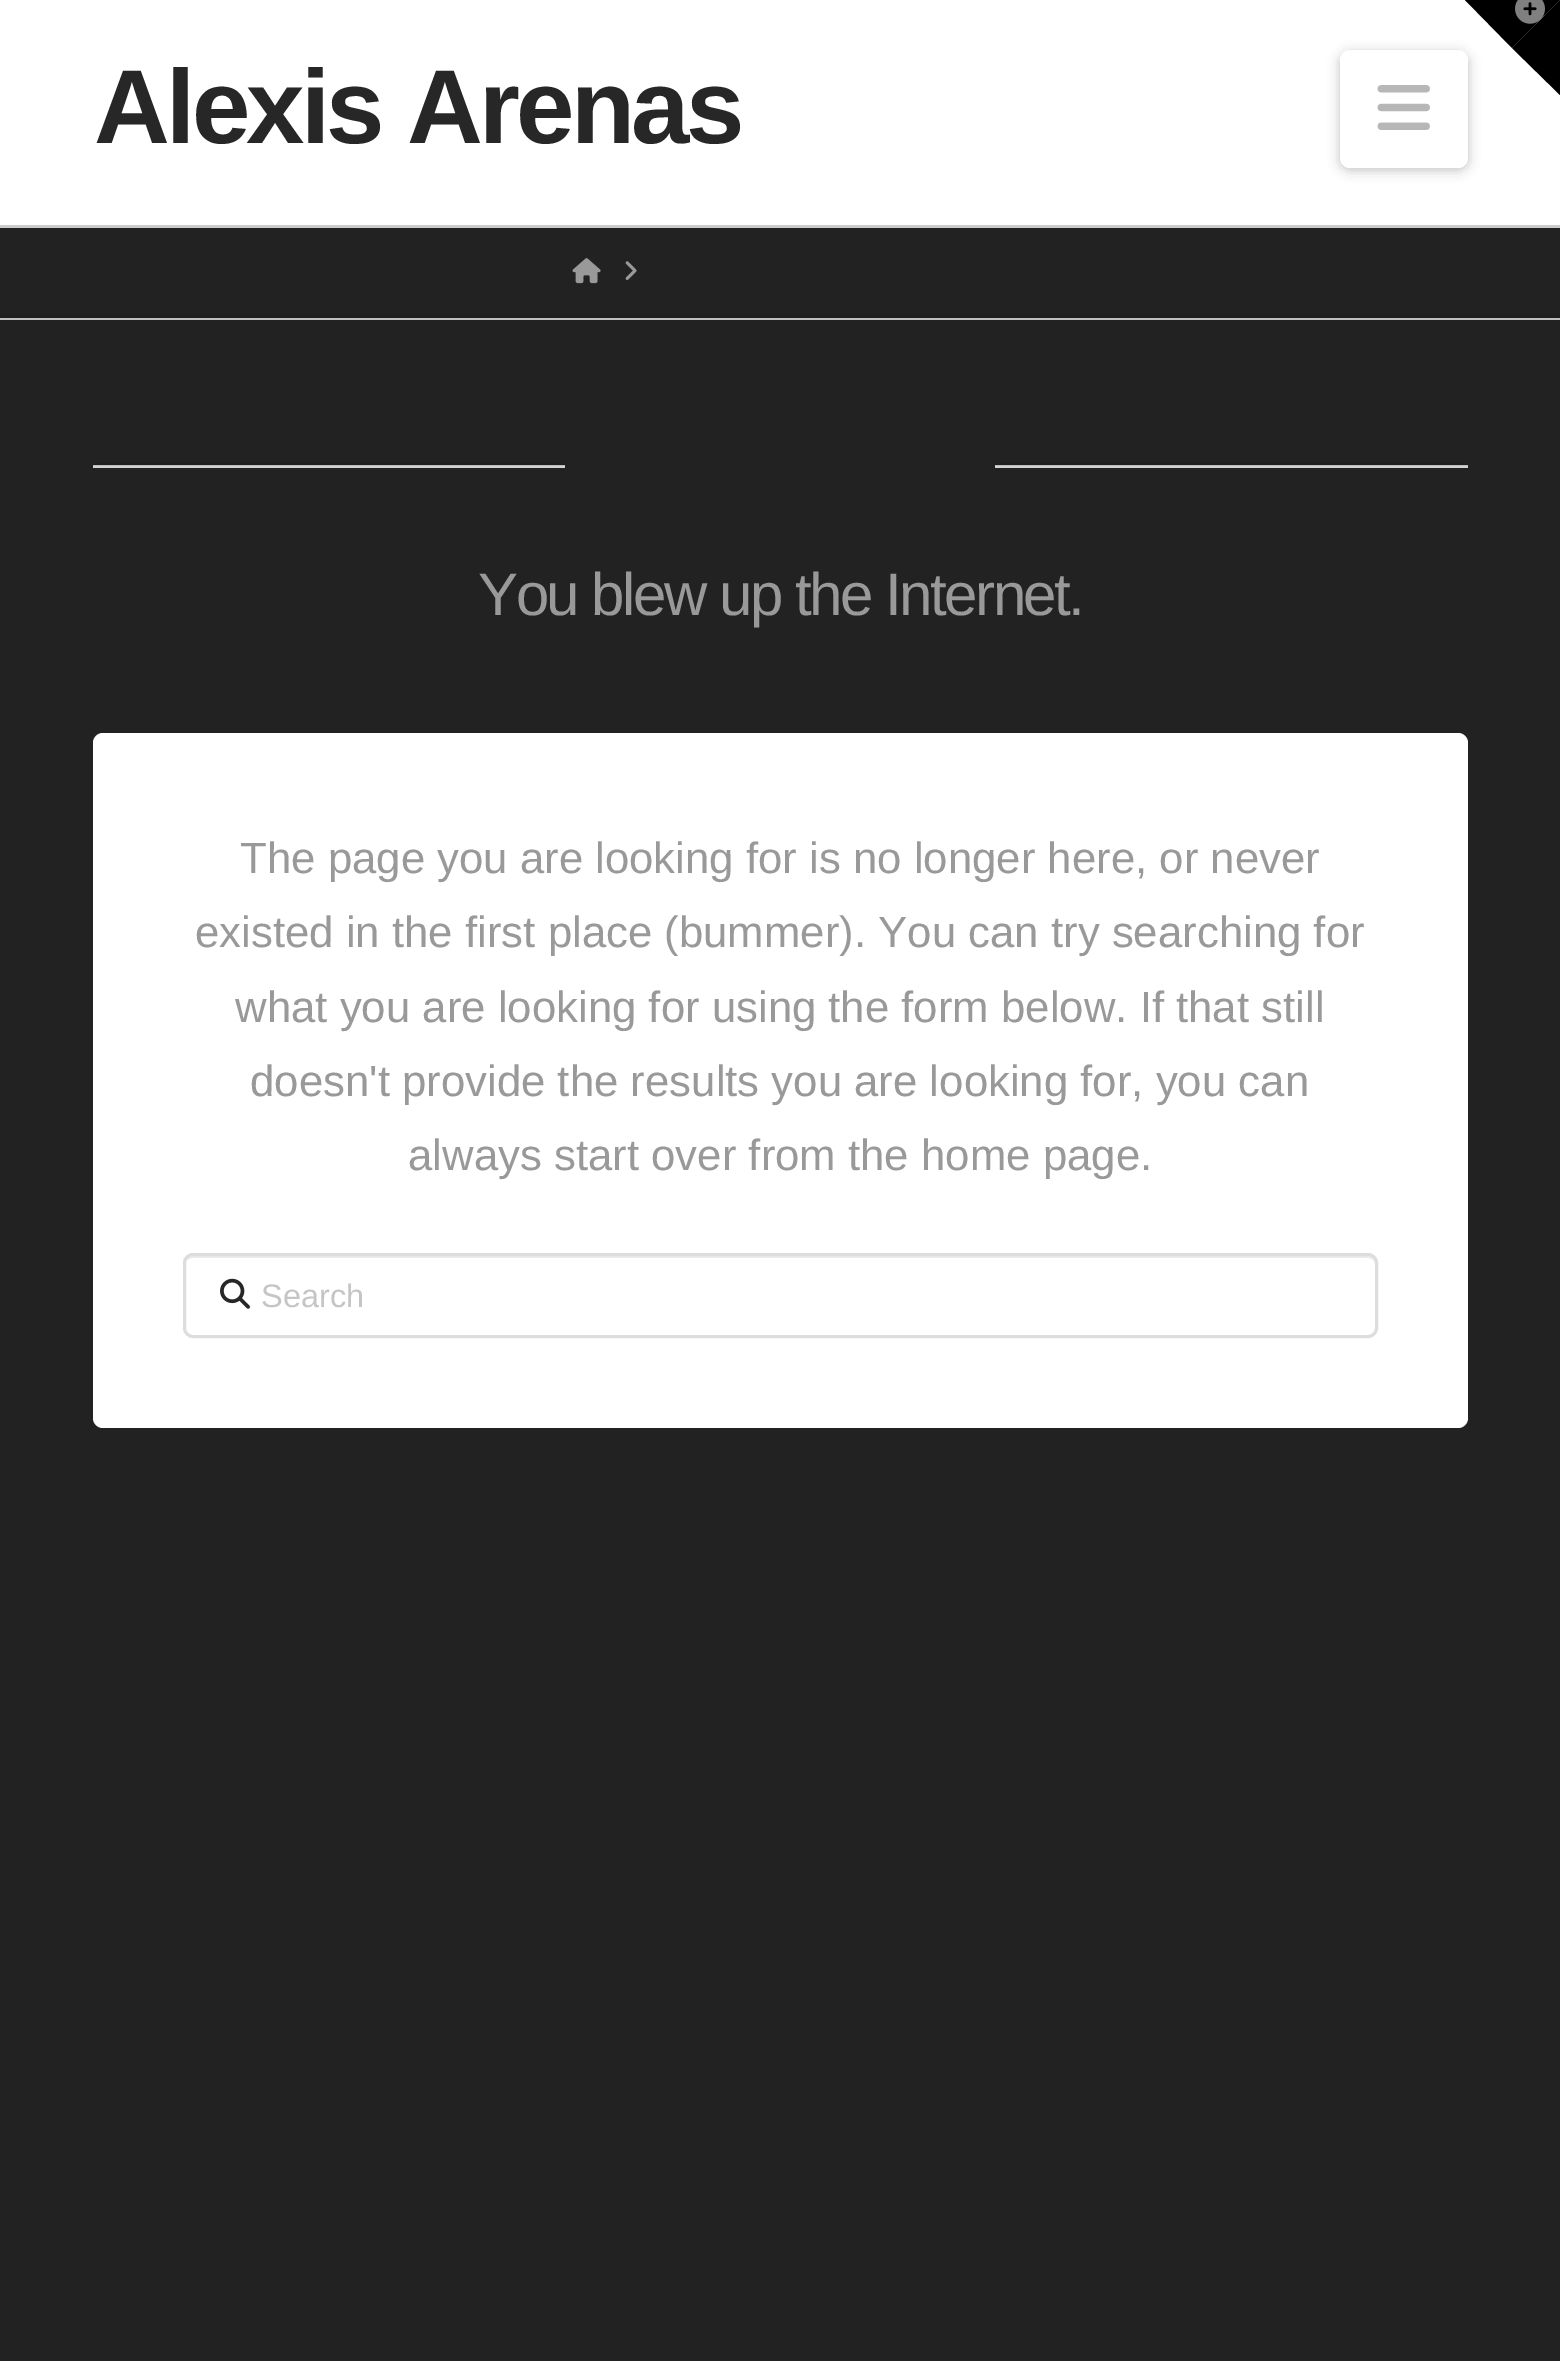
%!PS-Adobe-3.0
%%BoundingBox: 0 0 1560 2361
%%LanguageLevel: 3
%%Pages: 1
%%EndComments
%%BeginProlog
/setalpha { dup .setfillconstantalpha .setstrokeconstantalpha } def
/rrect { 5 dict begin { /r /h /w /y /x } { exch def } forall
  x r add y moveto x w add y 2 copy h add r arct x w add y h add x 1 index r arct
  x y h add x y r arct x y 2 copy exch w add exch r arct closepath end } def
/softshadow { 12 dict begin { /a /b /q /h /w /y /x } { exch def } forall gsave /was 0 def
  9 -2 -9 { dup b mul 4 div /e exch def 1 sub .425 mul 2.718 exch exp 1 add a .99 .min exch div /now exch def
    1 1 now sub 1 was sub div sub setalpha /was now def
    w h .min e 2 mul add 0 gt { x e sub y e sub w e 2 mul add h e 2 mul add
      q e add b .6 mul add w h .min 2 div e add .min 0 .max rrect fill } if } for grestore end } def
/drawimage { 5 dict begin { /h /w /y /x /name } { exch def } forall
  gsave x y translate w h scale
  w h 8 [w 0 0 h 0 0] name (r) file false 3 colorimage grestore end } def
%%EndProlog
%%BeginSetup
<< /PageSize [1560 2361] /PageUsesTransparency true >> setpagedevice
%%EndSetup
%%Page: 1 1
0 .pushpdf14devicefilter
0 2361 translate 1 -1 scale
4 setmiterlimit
0.133 setgray
0 0 1560 2361 rectfill
0.122 setgray
995 463 473 2 rectfill
93 463 472 2 rectfill
1 setgray
0 0 1560 225 rectfill
0 setgray
1340 53 128 117 10 6 0.25 softshadow
newpath 1465 0 moveto 1560 0 lineto 1512 48 lineto closepath fill
newpath 1560 0 moveto 1560 95 lineto 1512 48 lineto closepath fill
(images/1.raw) 1515 0 30 24 drawimage
0.8 setgray
0 225 1560 3 rectfill
1 setgray
1340 50 128 118 10 rrect fill
(images/2.raw) 1377 85 53 45 drawimage
0.753 setgray
0 318 1560 2 rectfill
0.122 setgray
0 315 1560 3 rectfill
(images/3.raw) 572 258 29 26 drawimage
(images/4.raw) 625 261 12 19 drawimage
0.824 setgray
93 466 472 2 rectfill
0.741 setgray
93 465 472 1 rectfill
0.824 setgray
995 466 473 2 rectfill
0.741 setgray
995 465 473 1 rectfill
1 setgray
93 733 1375 695 10 rrect fill
0.925 setgray
newpath 192 1258 moveto 1368 1258 lineto 1372 1258 1375 1261 1375 1265 curveto 1375 1263 lineto 1375 1259 1371 1255 1367 1255 curveto 193 1255 lineto 189 1255 185 1259 185 1263 curveto 185 1265 lineto 185 1261 188 1258 192 1258 curveto closepath fill
0.867 setgray
3 setlinewidth
184.5 1254.5 1192 82 8.5 rrect stroke
(images/5.raw) 220 1278 30 31 drawimage
/LiberationSans-Bold [105 0 0 -105 0 0] selectfont
0.153 setgray
94 143 moveto -3.7 0 (Alexis Arenas) ashow
/LiberationSans-Regular [60 0 0 -60 0 0] selectfont
0.6 setgray
478 615 moveto -2.5 0 (You blew up the Internet.) ashow
/LiberationSans-Regular [43.75 0 0 -43.75 0 0] selectfont
240 873 moveto (The page you are looking for is no longer here, or never) show
195 947 moveto (existed in the first place \(bummer\). You can try searching for) show
235 1022 moveto (what you are looking for using the form below. If that still) show
250 1096 moveto (doesn't provide the results you are looking for, you can) show
408 1170 moveto (always start over from the home page.) show
/LiberationSans-Regular [32.5 0 0 -32.5 0 0] selectfont
0.773 setgray
261 1307 moveto (Search) show
.poppdf14devicefilter showpage
%%EOF
